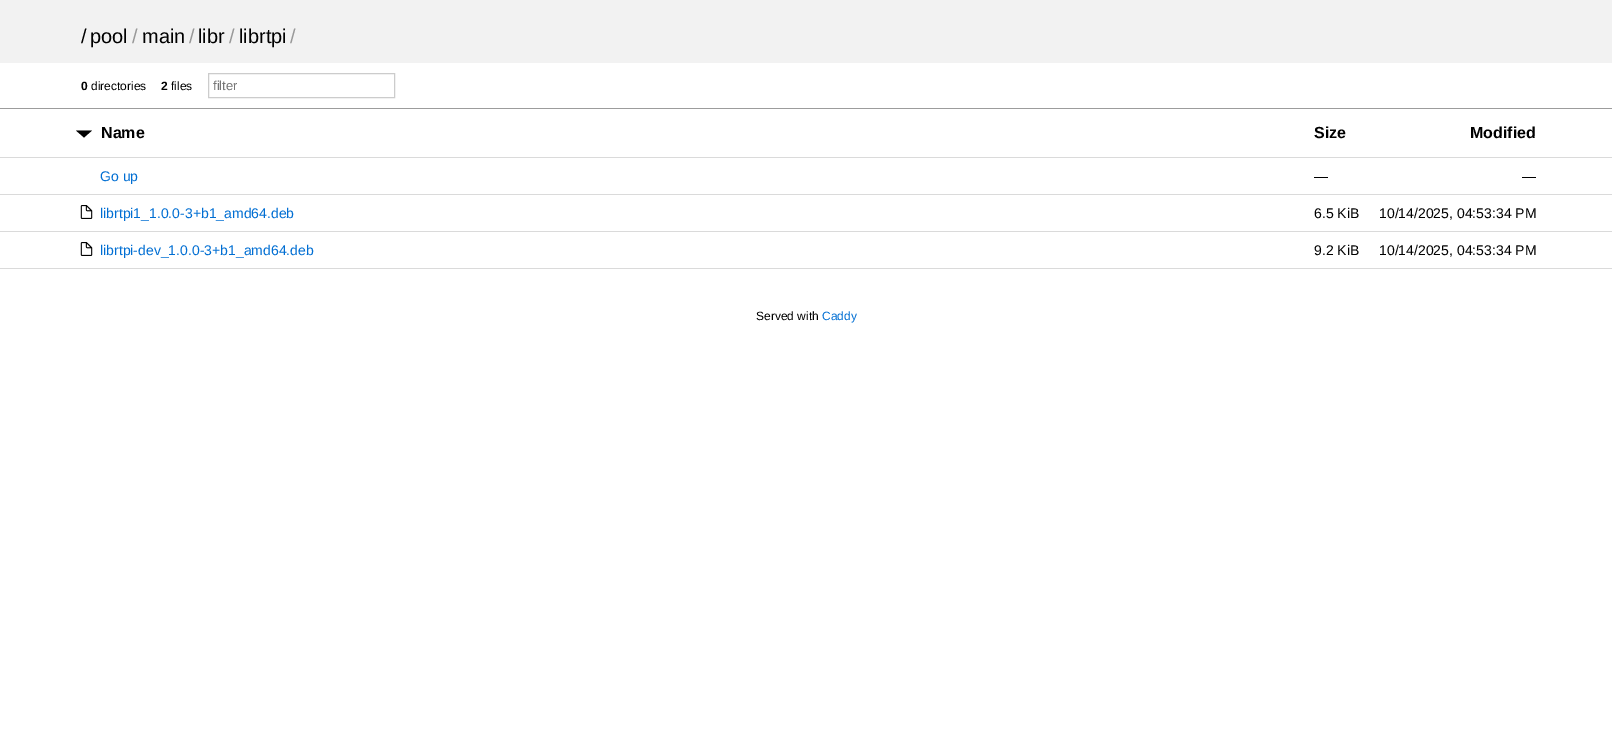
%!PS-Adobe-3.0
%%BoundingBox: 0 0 1612 730
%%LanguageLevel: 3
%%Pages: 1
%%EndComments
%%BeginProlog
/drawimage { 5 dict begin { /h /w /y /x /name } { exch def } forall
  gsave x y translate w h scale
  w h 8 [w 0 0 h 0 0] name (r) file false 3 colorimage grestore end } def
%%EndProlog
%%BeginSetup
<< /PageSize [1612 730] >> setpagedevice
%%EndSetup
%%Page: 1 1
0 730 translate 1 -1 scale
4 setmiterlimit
1 setgray
0 0 1612 730 rectfill
0.949 setgray
0 0 1612 63 rectfill
0.612 setgray
0 108 1612 1 rectfill
0.8 setgray
208.5 73.5 186 24 rectstroke
0.855 setgray
0 157 1612 1 rectfill
0 setgray
newpath 92 130.5 moveto 76 130.5 lineto 84 137.5 lineto 88 134 lineto closepath fill
0.855 setgray
0 194 1612 1 rectfill
0 231 1612 1 rectfill
(images/1.raw) 80 205 13 14 drawimage
0 268 1612 1 rectfill
(images/1.raw) 80 242 13 14 drawimage
/LiberationSans-Regular [20 0 0 -20 0 0] selectfont
0 setgray
81 43 moveto (/) show
90 43 moveto (pool) show
0.6 setgray
132 43 moveto (/) show
0 setgray
142 43 moveto (main) show
0.6 setgray
189 43 moveto (/) show
0 setgray
198 43 moveto (libr) show
0.6 setgray
229 43 moveto (/) show
0 setgray
239 43 moveto (librtpi) show
0.6 setgray
290 43 moveto (/) show
/LiberationSans-Bold [12 0 0 -12 0 0] selectfont
0 setgray
81 90 moveto (0) show
/LiberationSans-Regular [12 0 0 -12 0 0] selectfont
91 90 moveto (directories) show
/LiberationSans-Bold [12 0 0 -12 0 0] selectfont
161 90 moveto (2) show
/LiberationSans-Regular [12 0 0 -12 0 0] selectfont
171 90 moveto (files) show
/LiberationSans-Regular [13 0 0 -13 0 0] selectfont
0.459 setgray
213 90 moveto (filter) show
/LiberationSans-Bold [16 0 0 -16 0 0] selectfont
0 setgray
101 138 moveto (Name) show
1314 138 moveto (Size) show
1470 138 moveto (Modified) show
/LiberationSans-Regular [14 0 0 -14 0 0] selectfont
0 0.431 0.827 setrgbcolor
100 181 moveto (Go up) show
0 setgray
1314 181 moveto (—) show
1522 181 moveto (—) show
0 0.431 0.827 setrgbcolor
100 218 moveto (librtpi1_1.0.0-3+b1_amd64.deb) show
0 setgray
1314 218 moveto (6.5 KiB) show
1379 218 moveto (10/14/2025, 04:53:34 PM) show
0 0.431 0.827 setrgbcolor
100 255 moveto (librtpi-dev_1.0.0-3+b1_amd64.deb) show
0 setgray
1314 255 moveto (9.2 KiB) show
1379 255 moveto (10/14/2025, 04:53:34 PM) show
/LiberationSans-Regular [12 0 0 -12 0 0] selectfont
756 320 moveto (Served with) show
0 0.431 0.827 setrgbcolor
822 320 moveto (Caddy) show
showpage
%%EOF
